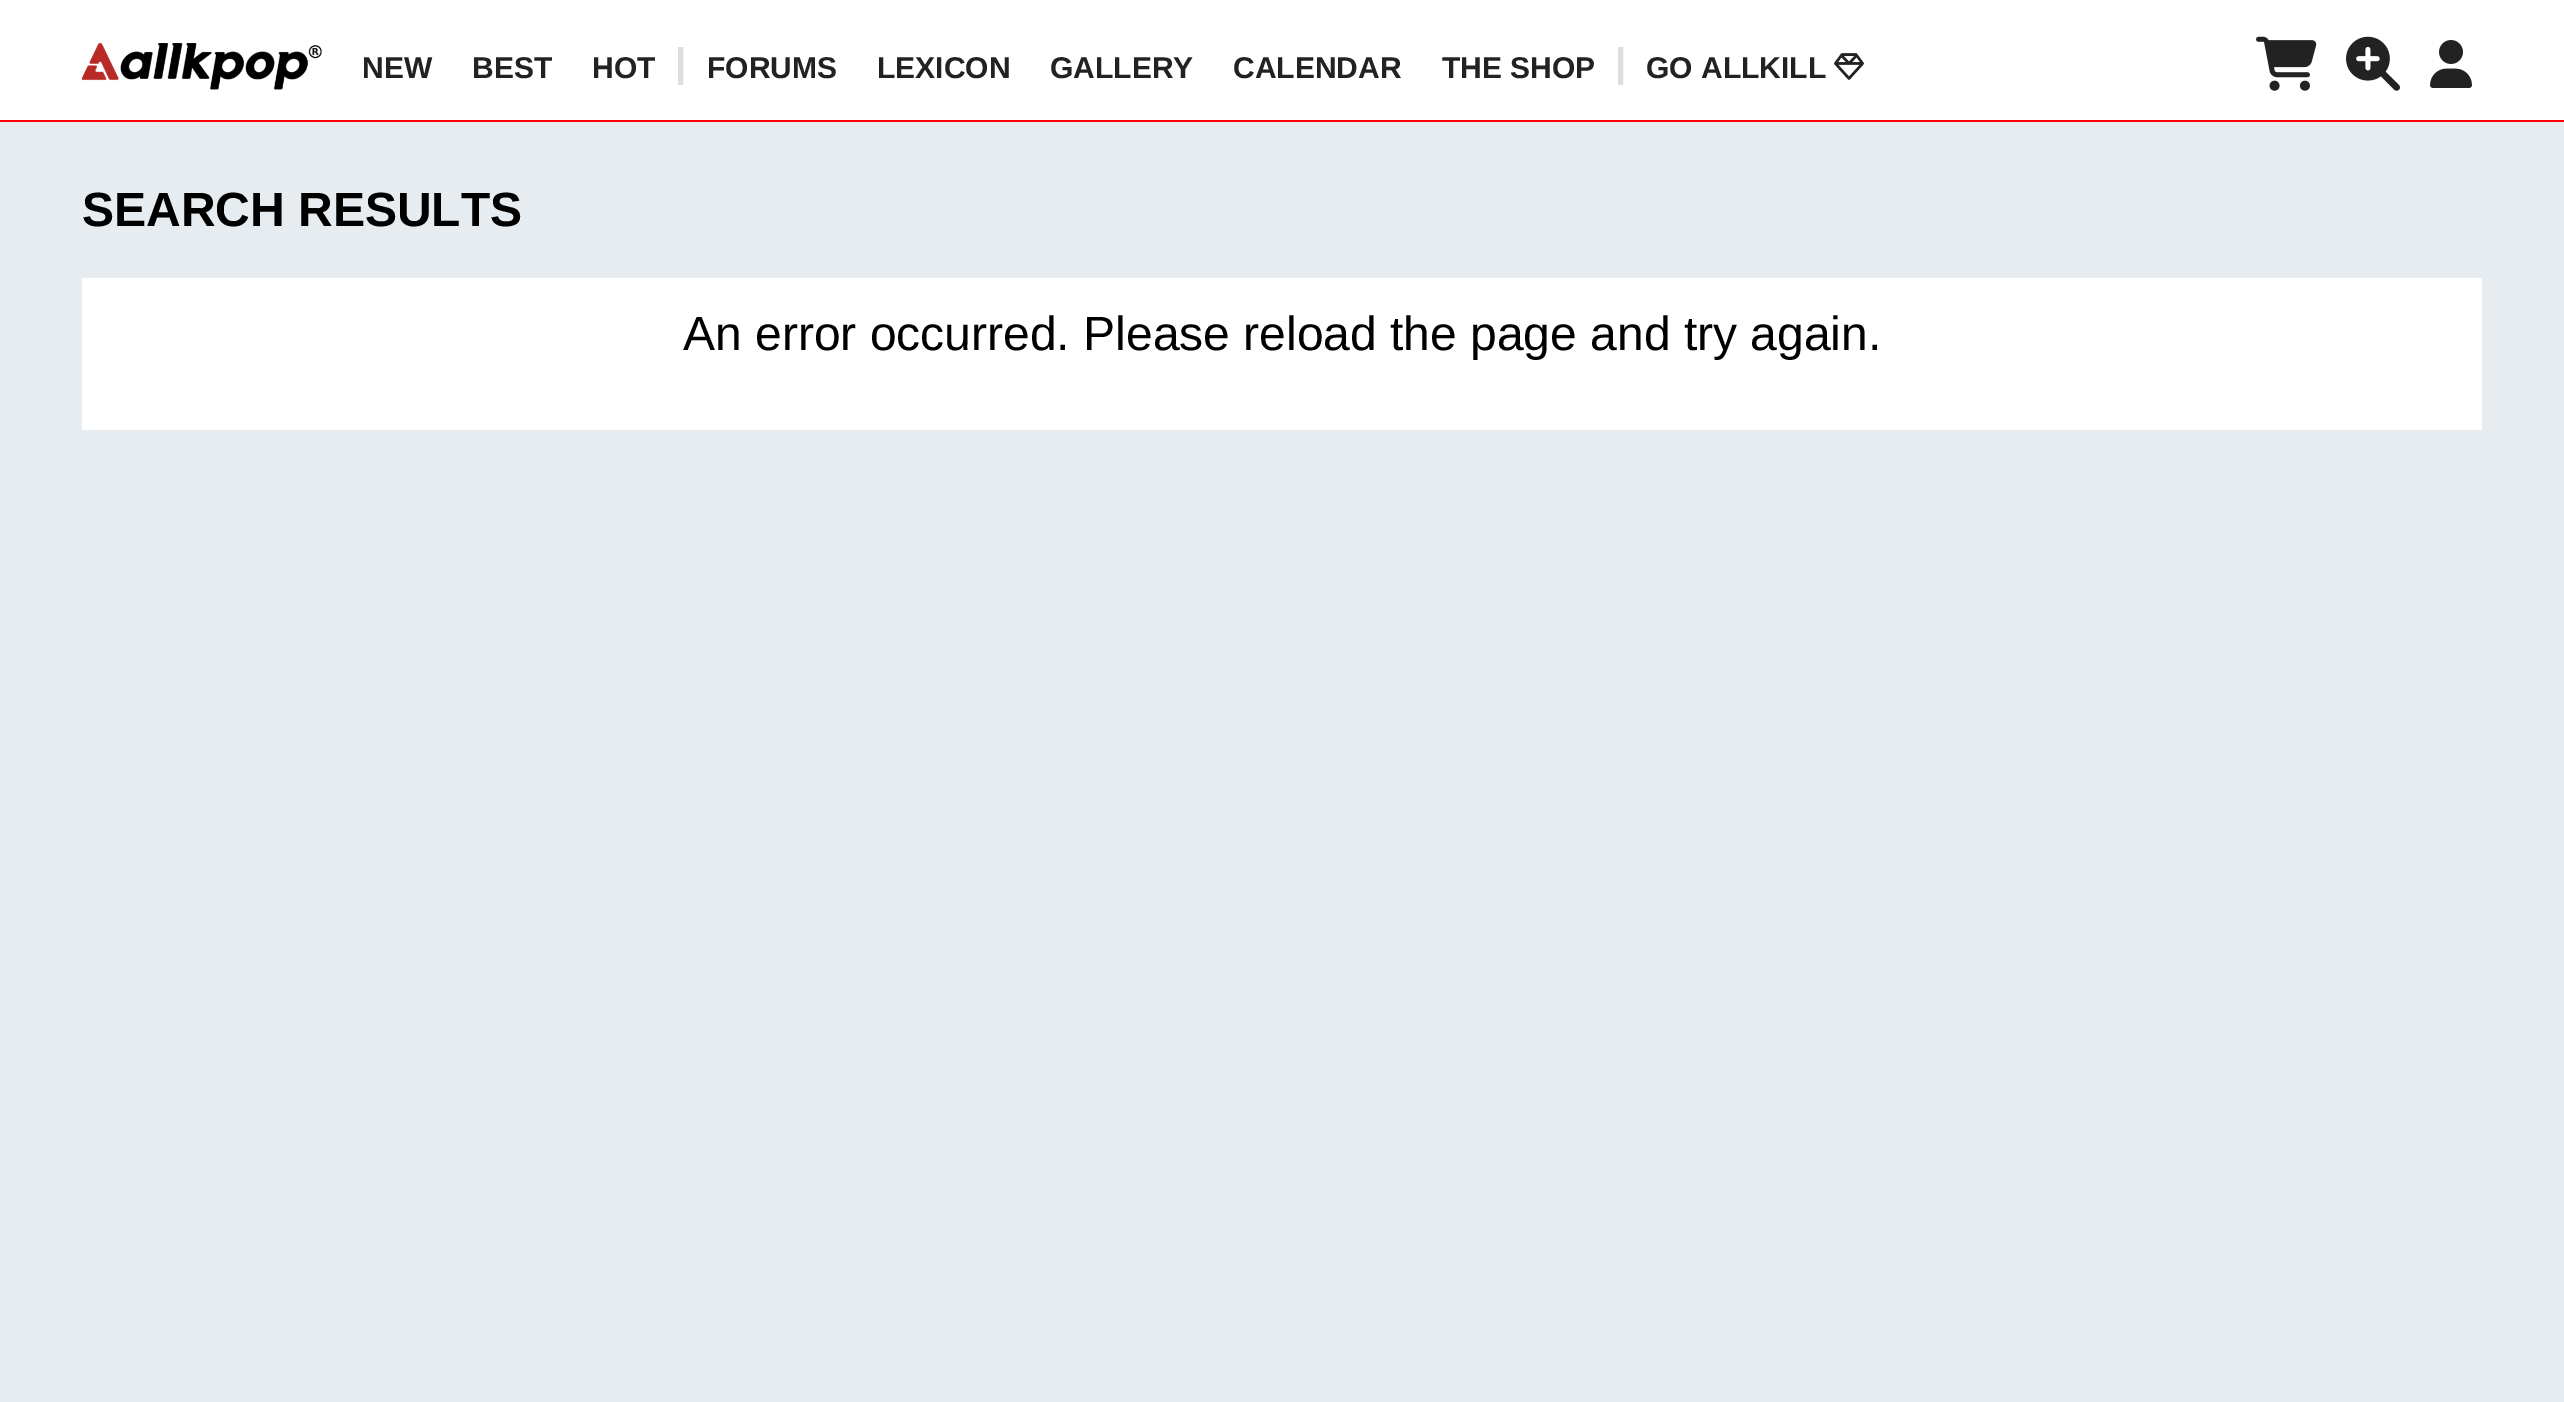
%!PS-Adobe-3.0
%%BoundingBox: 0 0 2564 1402
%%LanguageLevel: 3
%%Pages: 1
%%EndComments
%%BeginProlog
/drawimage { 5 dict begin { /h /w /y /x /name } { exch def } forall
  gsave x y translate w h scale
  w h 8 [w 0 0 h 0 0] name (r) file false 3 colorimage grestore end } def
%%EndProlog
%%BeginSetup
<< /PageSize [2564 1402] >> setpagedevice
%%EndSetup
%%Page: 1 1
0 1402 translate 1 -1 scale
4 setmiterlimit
0.902 0.925 0.941 setrgbcolor
0 0 2564 1402 rectfill
1 setgray
0 0 2564 120 rectfill
1 0 0 setrgbcolor
0 120 2564 2 rectfill
(images/1.raw) 81 43 241 47 drawimage
(images/2.raw) 1834 53 30 27 drawimage
(images/3.raw) 2256 36 61 55 drawimage
(images/4.raw) 2346 36 54 55 drawimage
(images/5.raw) 2430 40 42 48 drawimage
1 setgray
82 278 2400 152 rectfill
/LiberationSans-Bold [30 0 0 -30 0 0] selectfont
0.133 setgray
362 78 moveto (NEW) show
472 78 moveto (BEST) show
592 78 moveto (HOT) show
/LiberationSans-Bold [40 0 0 -40 0 0] selectfont
0.867 setgray
675 76 moveto (|) show
/LiberationSans-Bold [30 0 0 -30 0 0] selectfont
0.133 setgray
707 78 moveto (FORUMS) show
877 78 moveto (LEXICON) show
1050 78 moveto (GALLERY) show
1233 78 moveto (CALENDAR) show
1442 78 moveto (THE SHOP) show
/LiberationSans-Bold [40 0 0 -40 0 0] selectfont
0.867 setgray
1615 76 moveto (|) show
/LiberationSans-Bold [30 0 0 -30 0 0] selectfont
0.133 setgray
1646 78 moveto (GO ALLKILL) show
/LiberationSans-Bold [48 0 0 -48 0 0] selectfont
0 setgray
82 226 moveto (SEARCH RESULTS) show
/LiberationSans-Regular [48 0 0 -48 0 0] selectfont
683 350 moveto (An error occurred. Please reload the page and try again.) show
showpage
%%EOF
